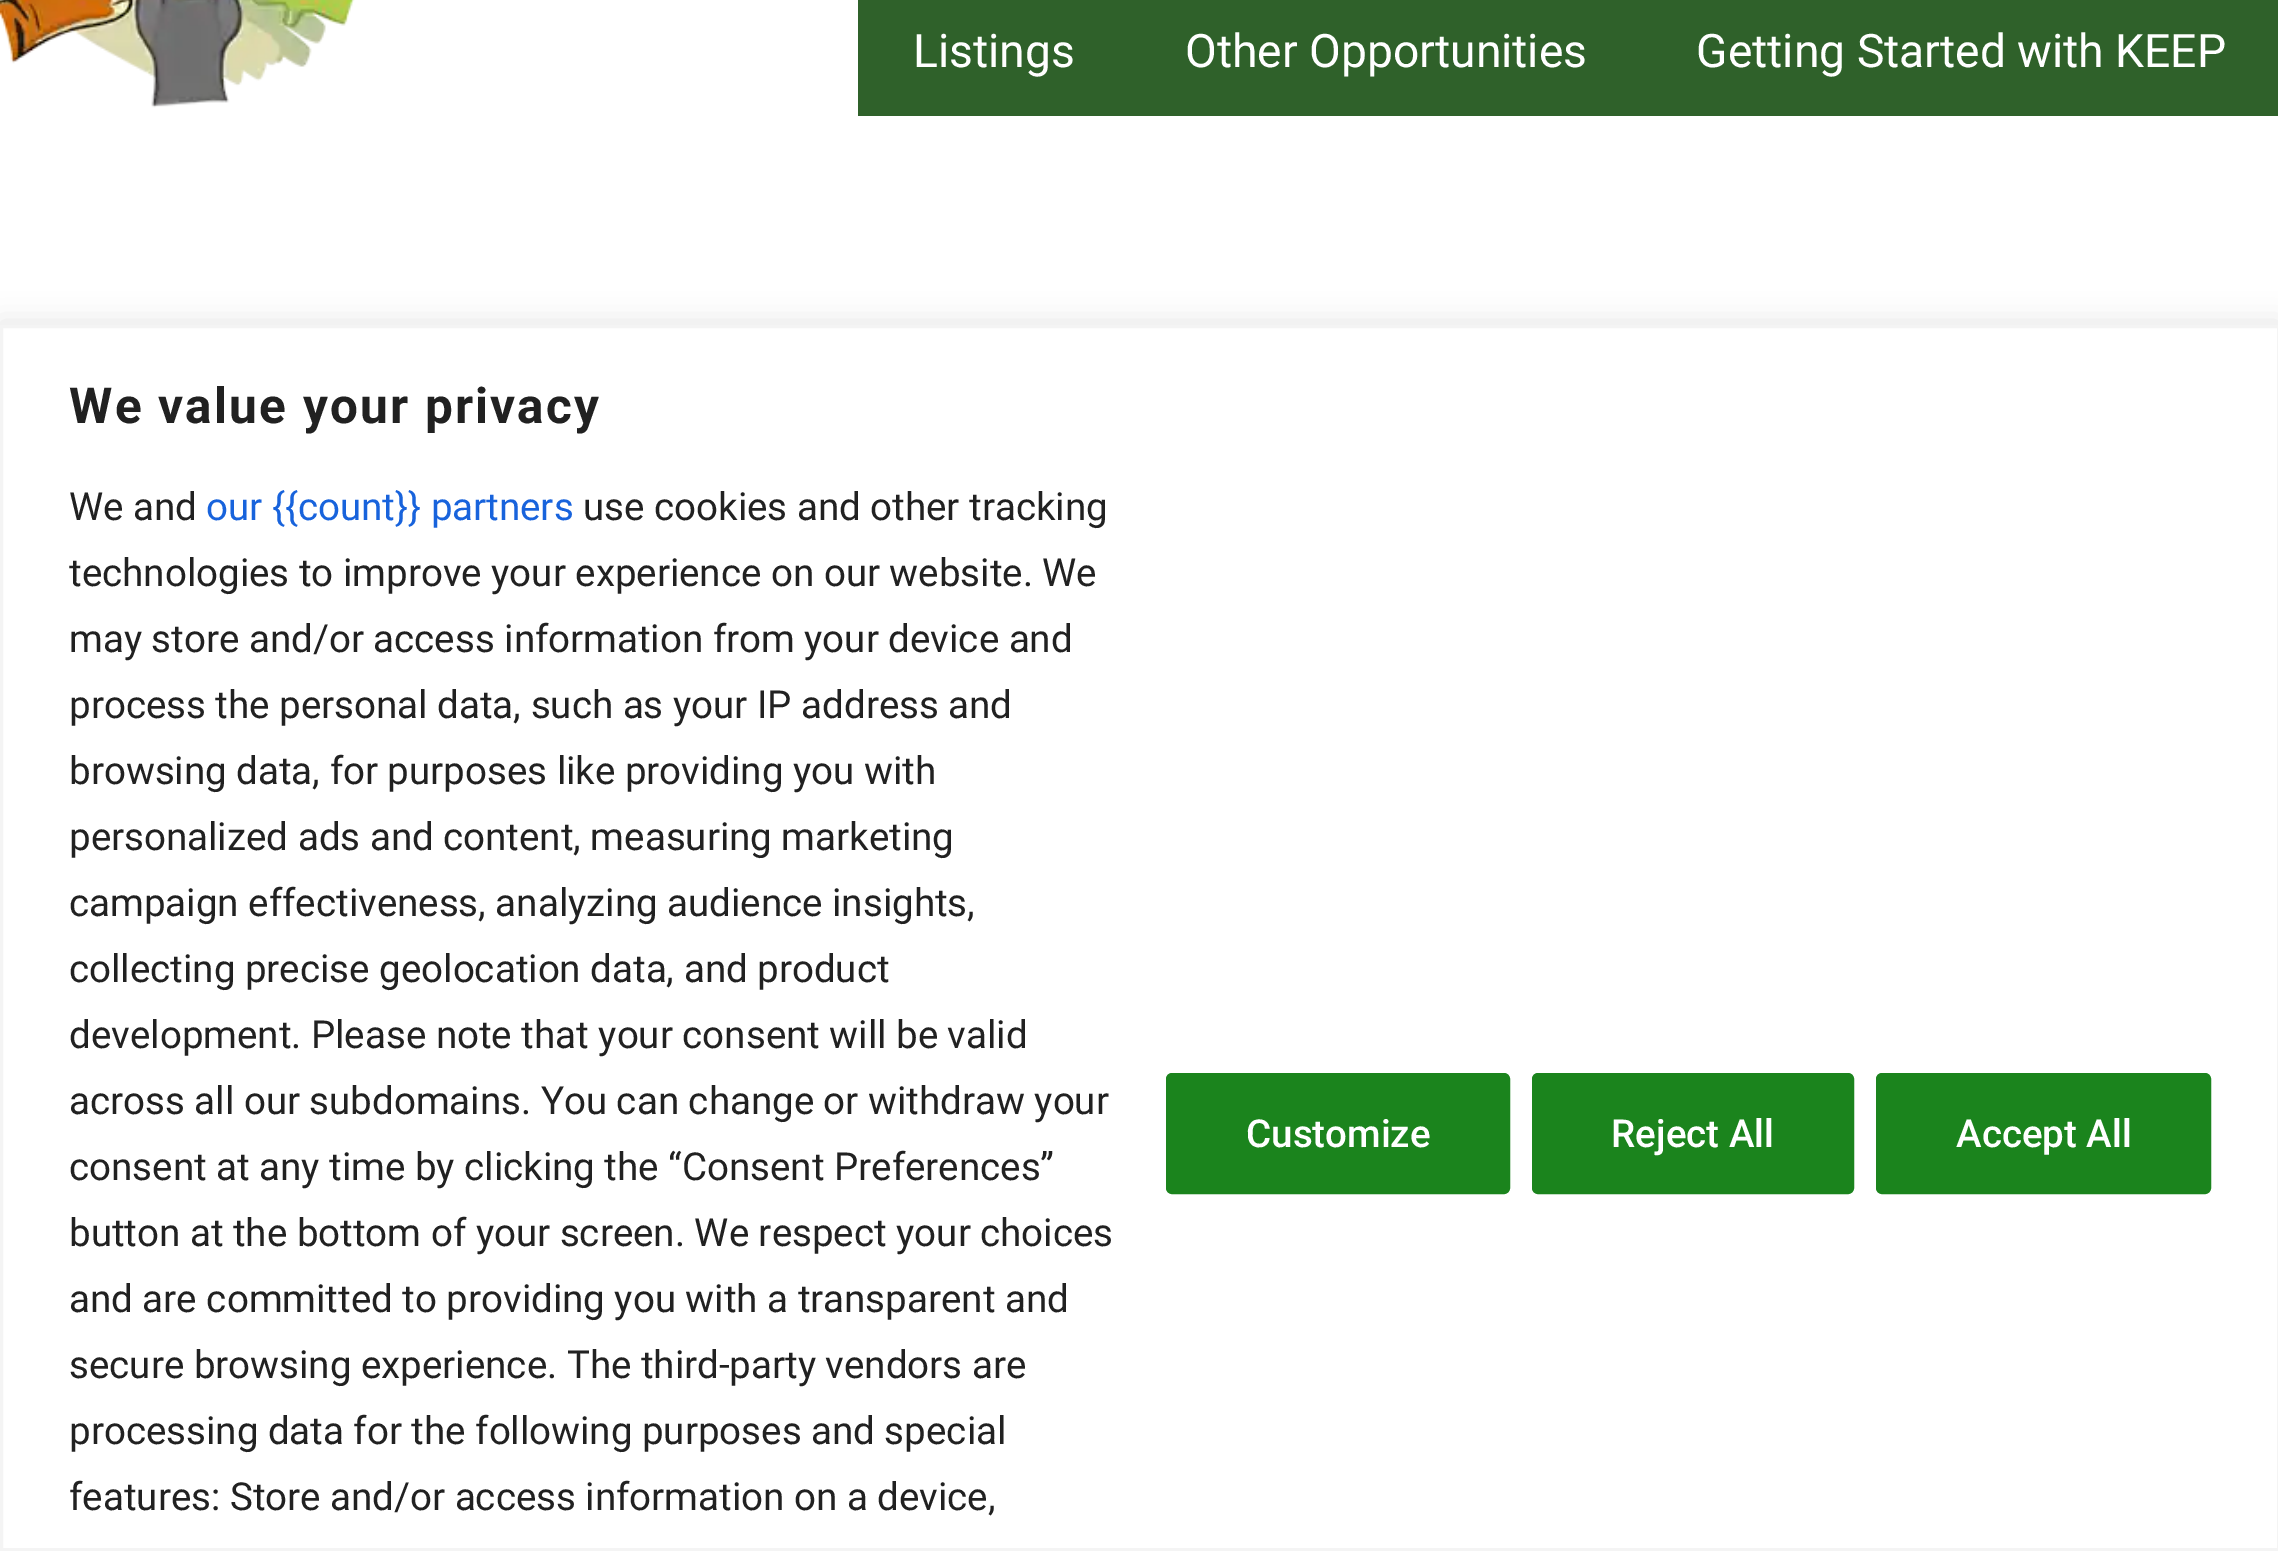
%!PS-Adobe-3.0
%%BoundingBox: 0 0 2278 1551
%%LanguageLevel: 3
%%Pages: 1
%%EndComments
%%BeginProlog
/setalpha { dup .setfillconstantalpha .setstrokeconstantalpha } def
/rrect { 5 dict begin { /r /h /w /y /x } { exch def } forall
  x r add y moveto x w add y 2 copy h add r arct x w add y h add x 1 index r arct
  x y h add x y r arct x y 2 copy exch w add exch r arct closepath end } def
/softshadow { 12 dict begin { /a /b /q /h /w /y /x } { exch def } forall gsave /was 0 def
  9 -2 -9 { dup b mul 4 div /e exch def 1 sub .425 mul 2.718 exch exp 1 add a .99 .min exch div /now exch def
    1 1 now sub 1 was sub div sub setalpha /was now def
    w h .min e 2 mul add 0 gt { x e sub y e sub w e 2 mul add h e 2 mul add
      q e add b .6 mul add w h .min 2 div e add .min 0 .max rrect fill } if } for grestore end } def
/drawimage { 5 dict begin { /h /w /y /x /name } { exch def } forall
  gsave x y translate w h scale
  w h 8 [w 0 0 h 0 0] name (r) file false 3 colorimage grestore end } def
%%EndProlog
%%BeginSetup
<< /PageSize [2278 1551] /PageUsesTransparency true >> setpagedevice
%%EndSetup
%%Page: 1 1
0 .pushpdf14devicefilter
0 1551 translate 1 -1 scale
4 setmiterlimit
1 setgray
0 0 2278 1551 rectfill
(images/1.raw) 0 0 355 108 drawimage
0.184 0.38 0.165 setrgbcolor
858 0 1420 116 rectfill
0.675 0.671 0.671 setrgbcolor
0 322 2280 1226 0 14 0.3 softshadow
1 setgray
newpath 1.5 326.5 moveto 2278.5 326.5 lineto 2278.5 1549.5 lineto 1.5 1549.5 lineto closepath gsave fill grestore
0.957 setgray
3 setlinewidth
stroke
0.106 0.518 0.114 setrgbcolor
1169 1076 338 115 3 rrect gsave fill grestore
6 setlinewidth
stroke
1535 1076 316 115 3 rrect gsave fill grestore
stroke
1879 1076 329 115 3 rrect gsave fill grestore
stroke
/Roboto-Regular [46.25 0 0 -46.25 0 0] selectfont
1 setgray
913 67 moveto (Listings) show
1185 67 moveto (Other Opportunities) show
1696 67 moveto (Getting Started with KEEP) show
/Roboto-Bold [49.5 0 0 -49.5 0 0] selectfont
0.129 setgray
69 423 moveto 2.2 0 (We value your privacy) ashow
/Roboto-Regular [38.5 0 0 -38.5 0 0] selectfont
69 520 moveto (We and) show
0.094 0.388 0.863 setrgbcolor
206 520 moveto (our {{count}} partners) show
0.129 setgray
583 520 moveto (use cookies and other tracking) show
69 586 moveto (technologies to improve your experience on our website. We) show
69 652 moveto (may store and/or access information from your device and) show
69 718 moveto (process the personal data, such as your IP address and) show
69 784 moveto (browsing data, for purposes like providing you with) show
69 850 moveto (personalized ads and content, measuring marketing) show
69 916 moveto (campaign effectiveness, analyzing audience insights,) show
69 982 moveto (collecting precise geolocation data, and product) show
69 1048 moveto (development. Please note that your consent will be valid) show
69 1114 moveto (across all our subdomains. You can change or withdraw your) show
69 1180 moveto (consent at any time by clicking the “Consent Preferences”) show
69 1246 moveto (button at the bottom of your screen. We respect your choices) show
69 1312 moveto (and are committed to providing you with a transparent and) show
69 1378 moveto (secure browsing experience. The third-party vendors are) show
69 1444 moveto (processing data for the following purposes and special) show
69 1510 moveto (features: Store and/or access information on a device,) show
/Roboto-Medium [38.5 0 0 -38.5 0 0] selectfont
1 setgray
1246 1147 moveto (Customize) show
1611 1147 moveto (Reject All) show
1956 1147 moveto (Accept All) show
.poppdf14devicefilter showpage
%%EOF
